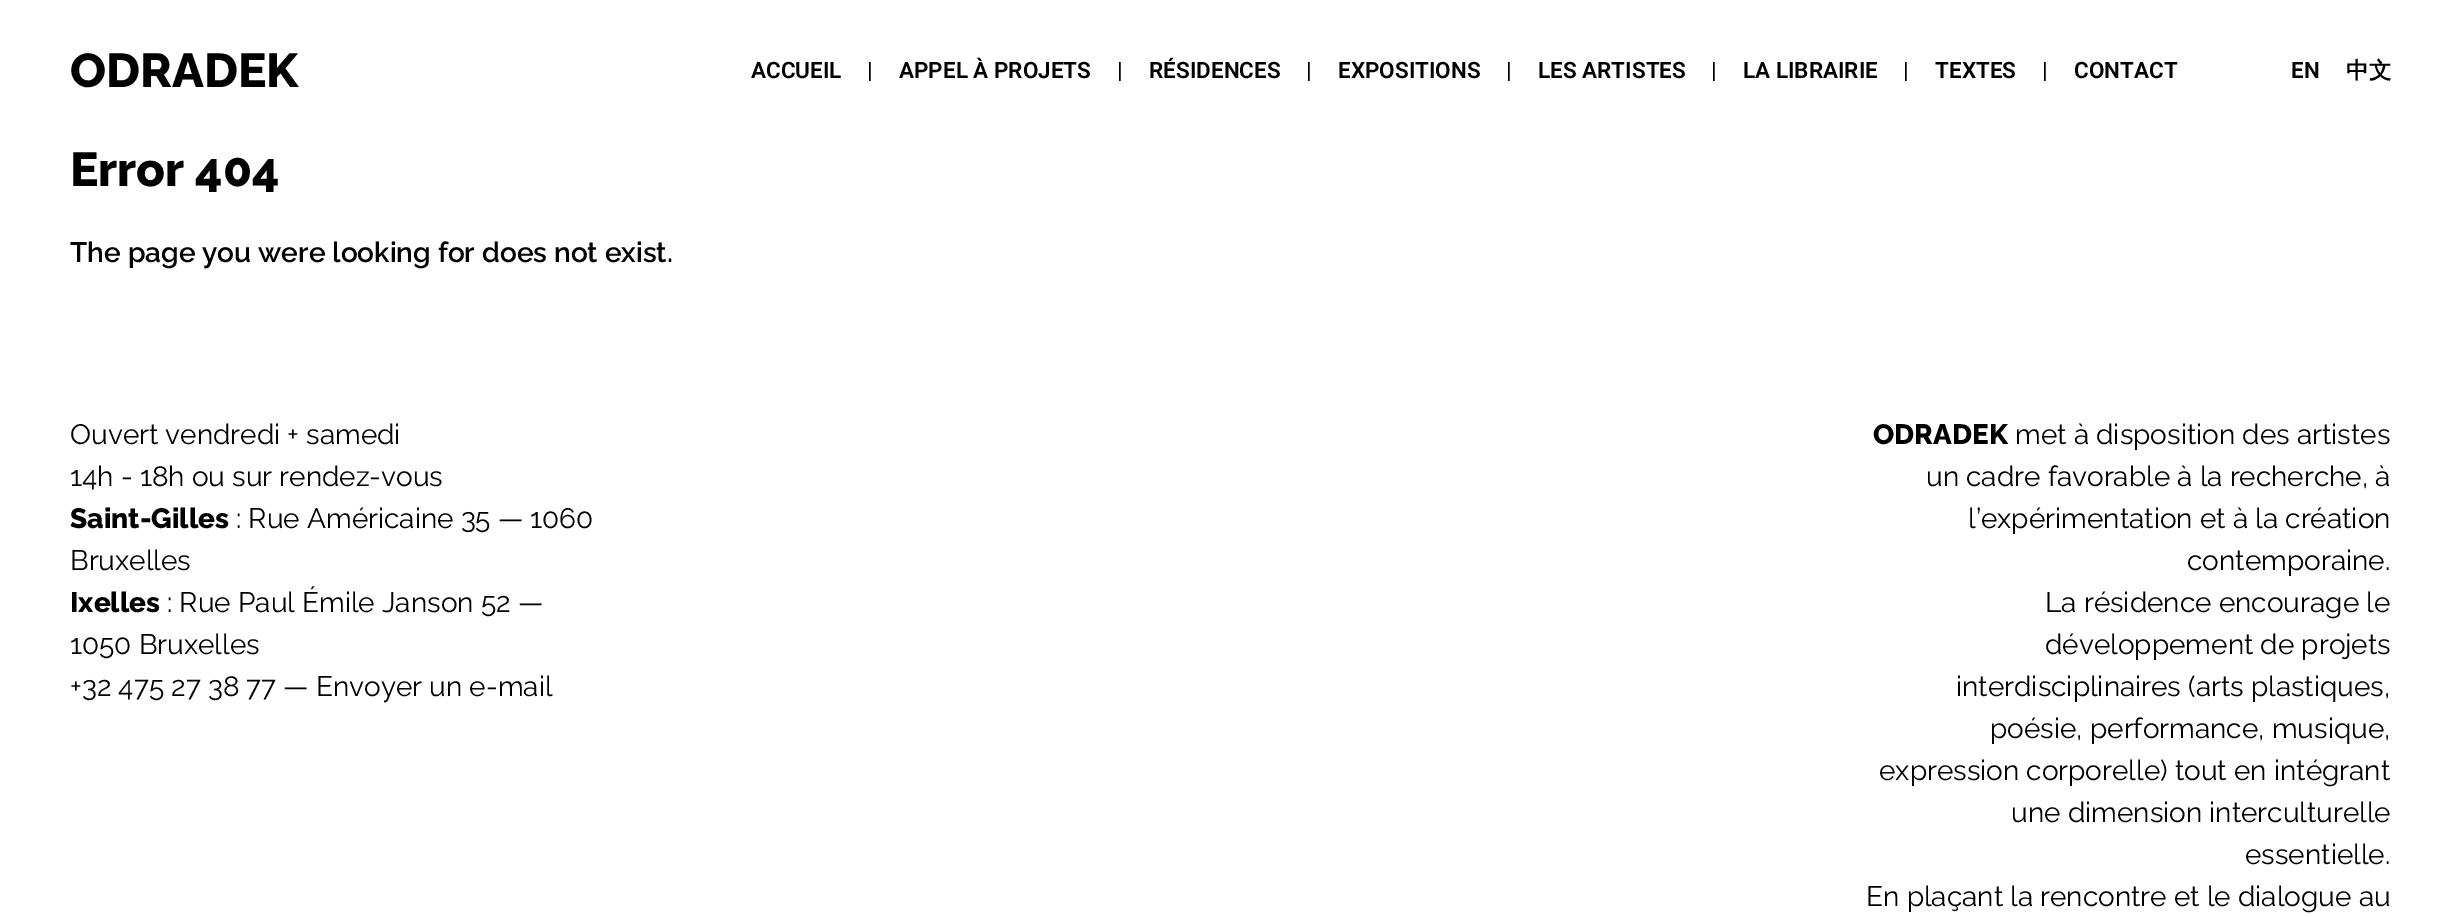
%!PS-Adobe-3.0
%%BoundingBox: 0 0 2459 917
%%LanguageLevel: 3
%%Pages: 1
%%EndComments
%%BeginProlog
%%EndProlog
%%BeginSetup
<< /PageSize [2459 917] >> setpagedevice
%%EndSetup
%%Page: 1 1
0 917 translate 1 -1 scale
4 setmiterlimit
1 setgray
0 0 2459 917 rectfill
/Raleway-ExtraBold [47.5 0 0 -47.5 0 0] selectfont
0 setgray
70 87 moveto (ODRADEK) show
/Roboto-SemiBold [22.5 0 0 -22.5 0 0] selectfont
751 78 moveto (ACCUEIL) show
867 78 moveto (|) show
899 78 moveto (APPEL À PROJETS) show
1117 78 moveto (|) show
1149 78 moveto (RÉSIDENCES) show
1306 78 moveto (|) show
1338 78 moveto (EXPOSITIONS) show
1506 78 moveto (|) show
1538 78 moveto (LES ARTISTES) show
1711 78 moveto (|) show
1743 78 moveto (LA LIBRAIRIE) show
1903 78 moveto (|) show
1935 78 moveto (TEXTES) show
2042 78 moveto (|) show
2074 78 moveto (CONTACT) show
2291 78 moveto (EN) show
/WenQuanYiZenHei-Bold [22.5 0 0 -22.5 0 0] selectfont
2346 78 moveto (中文) show
/Raleway-ExtraBold [47.5 0 0 -47.5 0 0] selectfont
70 186 moveto (Error 404) show
/Raleway-SemiBold [28 0 0 -28 0 0] selectfont
70 262 moveto (The page you were looking for does not exist.) show
/Raleway-Regular [28 0 0 -28 0 0] selectfont
70 444 moveto (Ouvert vendredi + samedi) show
70 486 moveto (14h - 18h ou sur rendez-vous) show
/Raleway-ExtraBold [28 0 0 -28 0 0] selectfont
70 528 moveto (Saint-Gilles) show
/Raleway-Regular [28 0 0 -28 0 0] selectfont
236 528 moveto (: Rue Américaine 35 — 1060) show
70 570 moveto (Bruxelles) show
/Raleway-ExtraBold [28 0 0 -28 0 0] selectfont
70 612 moveto (Ixelles) show
/Raleway-Regular [28 0 0 -28 0 0] selectfont
167 612 moveto (: Rue Paul Émile Janson 52 —) show
70 654 moveto (1050 Bruxelles) show
70 696 moveto (+32 475 27 38 77 — Envoyer un e-mail) show
/Raleway-ExtraBold [28 0 0 -28 0 0] selectfont
1873 444 moveto (ODRADEK) show
/Raleway-Regular [28 0 0 -28 0 0] selectfont
2015 444 moveto (met à disposition des artistes) show
1926 486 moveto (un cadre favorable à la recherche, à) show
1968 528 moveto (l’expérimentation et à la création) show
2187 570 moveto (contemporaine.) show
2045 612 moveto (La résidence encourage le) show
2045 654 moveto (développement de projets) show
1956 696 moveto (interdisciplinaires \(arts plastiques,) show
1990 738 moveto (poésie, performance, musique,) show
1879 780 moveto (expression corporelle\) tout en intégrant) show
2011 822 moveto (une dimension interculturelle) show
2245 864 moveto (essentielle.) show
1866 906 moveto (En plaçant la rencontre et le dialogue au) show
showpage
%%EOF
